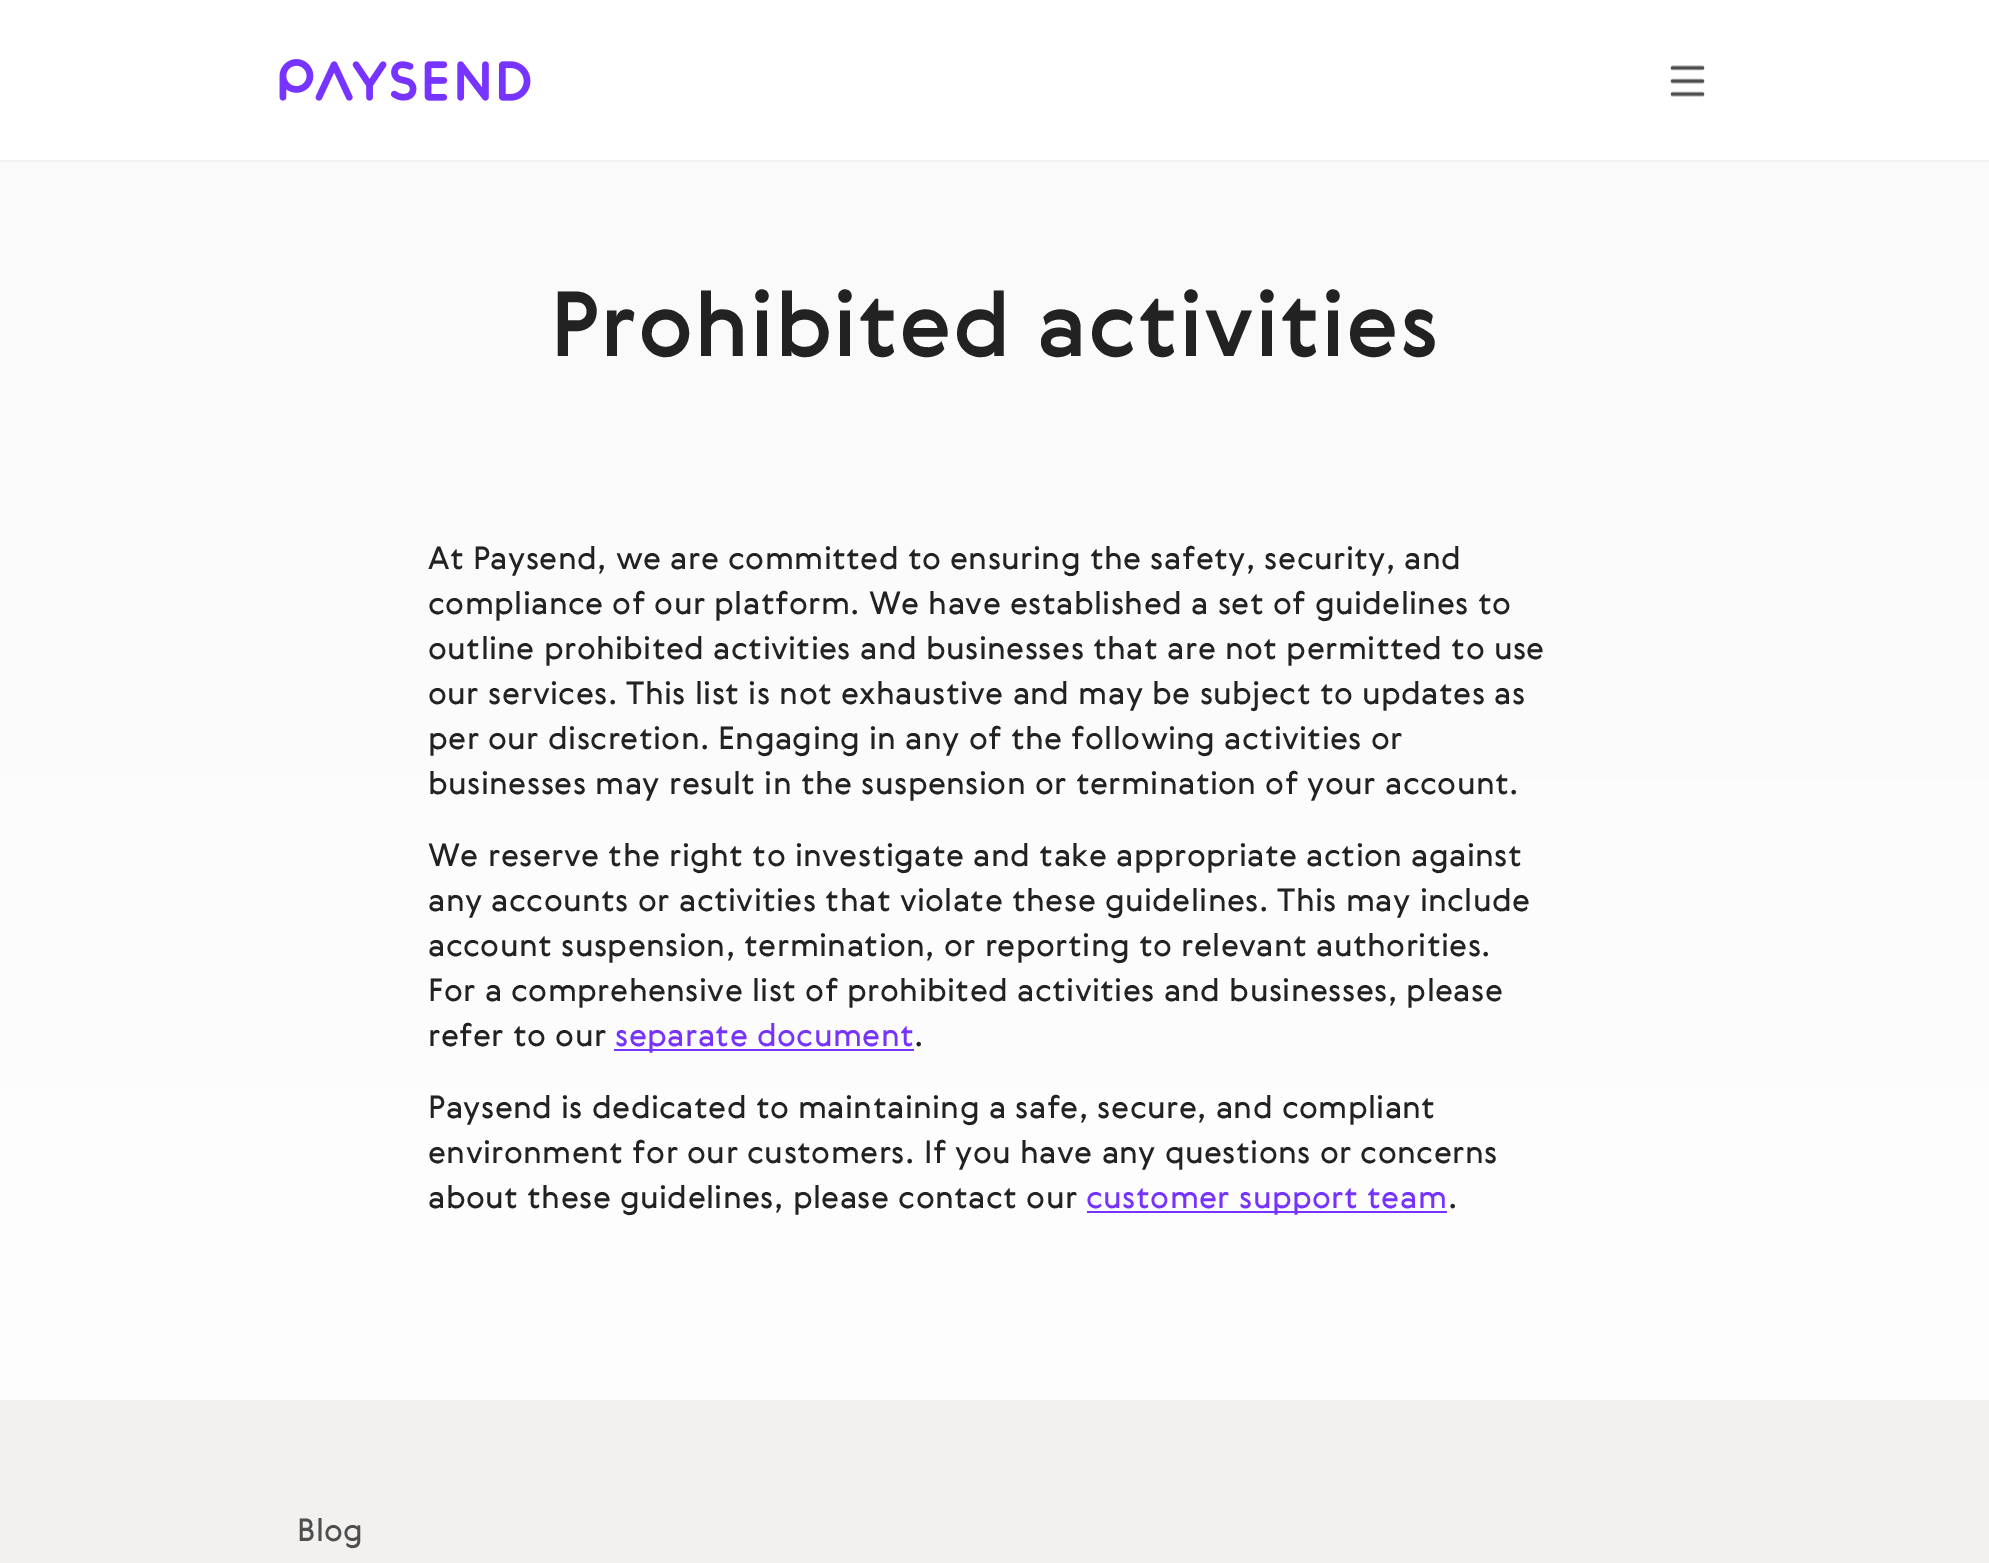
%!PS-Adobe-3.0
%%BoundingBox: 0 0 1989 1563
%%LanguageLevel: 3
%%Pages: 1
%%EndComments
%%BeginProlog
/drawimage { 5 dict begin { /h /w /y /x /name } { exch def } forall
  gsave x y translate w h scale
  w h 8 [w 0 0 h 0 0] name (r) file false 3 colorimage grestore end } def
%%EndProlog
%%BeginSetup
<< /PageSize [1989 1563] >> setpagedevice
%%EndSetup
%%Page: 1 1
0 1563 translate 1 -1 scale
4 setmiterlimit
0.949 0.945 0.941 setrgbcolor
0 0 1989 1563 rectfill
1 setgray
0 0 1989 160 rectfill
(images/1.raw) 279 59 252 42 drawimage
(images/2.raw) 1670 65 35 32 drawimage
gsave newpath 0 162 moveto 1989 162 lineto 1989 1400 lineto 0 1400 lineto closepath clip newpath
<< /ShadingType 2 /ColorSpace /DeviceRGB /Coords [994 0 995 1400] /Extend [true true] /Function << /FunctionType 2 /Domain [0 1] /C0 [0.98 0.98 0.98] /C1 [0.996 0.996 0.996] /N 1 >> >> shfill grestore
0.463 0.2 1 setrgbcolor
614 1049 300 2 rectfill
1087 1211 360 2 rectfill
/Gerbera-Medium [90 0 0 -90 0 0] selectfont
0.133 setgray
550 356 moveto 0.9 0 (Prohibited activities) ashow
/Gerbera-Regular [31.5 0 0 -31.5 0 0] selectfont
428 569 moveto 0.35 0 (At Paysend, we are committed to ensuring the safety, security, and) ashow
428 614 moveto 0.35 0 (compliance of our platform. We have established a set of guidelines to) ashow
428 659 moveto 0.35 0 (outline prohibited activities and businesses that are not permitted to use) ashow
428 704 moveto 0.35 0 (our services. This list is not exhaustive and may be subject to updates as) ashow
428 749 moveto 0.35 0 (per our discretion. Engaging in any of the following activities or) ashow
428 794 moveto 0.35 0 (businesses may result in the suspension or termination of your account.) ashow
428 866 moveto 0.35 0 (We reserve the right to investigate and take appropriate action against) ashow
428 911 moveto 0.35 0 (any accounts or activities that violate these guidelines. This may include) ashow
428 956 moveto 0.35 0 (account suspension, termination, or reporting to relevant authorities.) ashow
428 1001 moveto 0.35 0 (For a comprehensive list of prohibited activities and businesses, please) ashow
428 1046 moveto 0.35 0 (refer to our) ashow
0.463 0.2 1 setrgbcolor
615 1046 moveto 0.35 0 (separate document) ashow
0.133 setgray
914 1046 moveto 0.35 0 (.) ashow
428 1118 moveto 0.35 0 (Paysend is dedicated to maintaining a safe, secure, and compliant) ashow
428 1163 moveto 0.35 0 (environment for our customers. If you have any questions or concerns) ashow
428 1208 moveto 0.35 0 (about these guidelines, please contact our) ashow
0.463 0.2 1 setrgbcolor
1086 1208 moveto 0.35 0 (customer support team) ashow
0.133 setgray
1448 1208 moveto 0.35 0 (.) ashow
0.306 setgray
297 1541 moveto 0.35 0 (Blog) ashow
showpage
%%EOF
